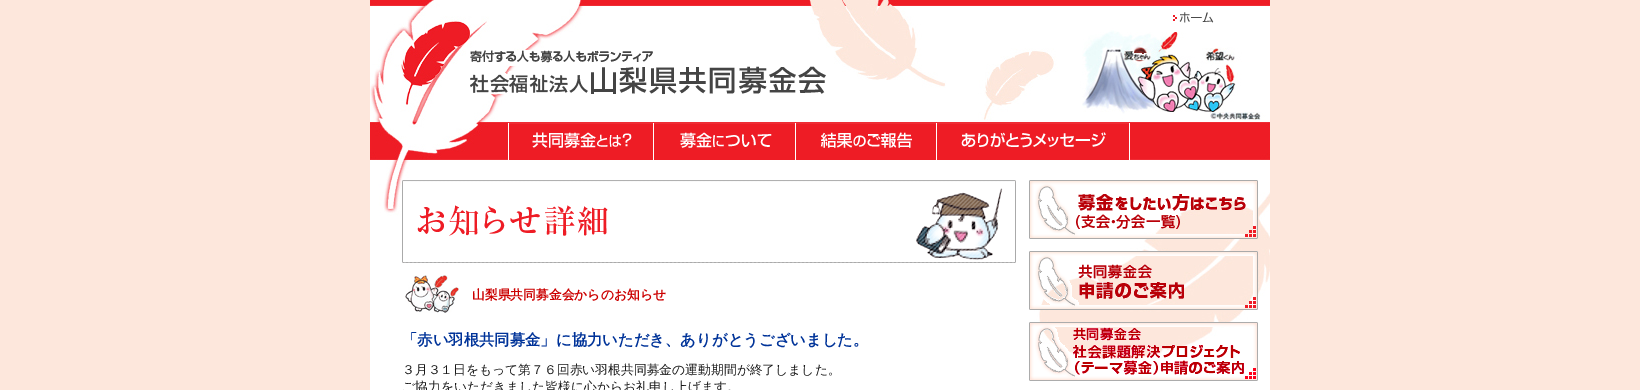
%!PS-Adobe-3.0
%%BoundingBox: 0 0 1640 390
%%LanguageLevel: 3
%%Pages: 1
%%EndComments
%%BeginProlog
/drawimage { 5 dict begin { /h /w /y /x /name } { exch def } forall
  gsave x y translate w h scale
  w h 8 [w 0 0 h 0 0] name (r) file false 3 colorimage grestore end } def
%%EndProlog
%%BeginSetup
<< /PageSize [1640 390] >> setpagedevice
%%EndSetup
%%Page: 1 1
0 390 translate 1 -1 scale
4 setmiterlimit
0.992 0.906 0.863 setrgbcolor
0 0 1640 390 rectfill
1 setgray
370 360 900 30 rectfill
(images/1.raw) 370 0 900 360 drawimage
(images/2.raw) 1173 12 41 11 drawimage
(images/3.raw) 470 50 356 44 drawimage
(images/4.raw) 508 123 145 37 drawimage
(images/5.raw) 653 123 142 37 drawimage
(images/6.raw) 795 123 141 37 drawimage
(images/7.raw) 936 123 194 37 drawimage
(images/8.raw) 402 180 614 83 drawimage
(images/9.raw) 405 275 54 38 drawimage
(images/10.raw) 1029 180 229 59 drawimage
(images/11.raw) 1029 251 229 59 drawimage
(images/12.raw) 1029 322 229 59 drawimage
/WenQuanYiZenHei-Bold [12.8 0 0 -12.8 0 0] selectfont
0.8 0 0 setrgbcolor
472 299 moveto (山梨県共同募金会からのお知らせ) show
/WenQuanYiZenHei-Bold [15.35 0 0 -15.35 0 0] selectfont
0 0.2 0.6 setrgbcolor
402 345 moveto (「赤い羽根共同募金」に協力いただき、ありがとうございました。) show
/WenQuanYiZenHei-Medium [12.8 0 0 -12.8 0 0] selectfont
0.098 setgray
402 374 moveto (３月３１日をもって第７６回赤い羽根共同募金の運動期間が終了しました。) show
402 391 moveto (ご協力をいただきました皆様に心からお礼申し上げます。) show
showpage
%%EOF
